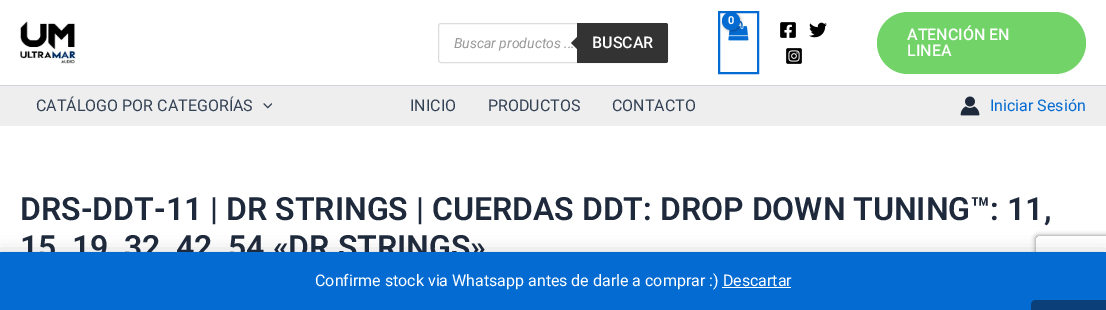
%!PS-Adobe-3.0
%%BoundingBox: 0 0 1106 310
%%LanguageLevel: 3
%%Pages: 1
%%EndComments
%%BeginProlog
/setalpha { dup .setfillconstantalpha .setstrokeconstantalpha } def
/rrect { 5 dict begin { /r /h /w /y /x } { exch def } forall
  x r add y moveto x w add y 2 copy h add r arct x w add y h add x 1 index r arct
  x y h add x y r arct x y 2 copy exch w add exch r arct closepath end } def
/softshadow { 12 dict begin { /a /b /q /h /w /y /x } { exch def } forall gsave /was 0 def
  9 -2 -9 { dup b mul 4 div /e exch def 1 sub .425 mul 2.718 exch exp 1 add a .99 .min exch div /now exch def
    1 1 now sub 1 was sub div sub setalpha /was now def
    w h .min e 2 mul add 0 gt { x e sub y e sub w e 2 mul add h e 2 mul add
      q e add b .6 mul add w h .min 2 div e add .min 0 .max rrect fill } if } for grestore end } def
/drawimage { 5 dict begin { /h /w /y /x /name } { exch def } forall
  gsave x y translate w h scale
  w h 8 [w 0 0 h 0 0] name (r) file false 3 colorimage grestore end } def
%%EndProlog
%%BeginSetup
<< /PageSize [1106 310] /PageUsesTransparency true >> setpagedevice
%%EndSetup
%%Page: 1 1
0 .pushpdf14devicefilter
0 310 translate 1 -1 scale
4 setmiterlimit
1 setgray
0 0 1106 310 rectfill
0.82 0.835 0.859 setrgbcolor
0 85 1106 1 rectfill
(images/1.raw) 20 21 56 43 drawimage
0.867 setgray
438.5 23.5 229 39 2.5 rrect stroke
0.2 setgray
newpath 577 23 moveto 666 23 lineto 667 23 668 24 668 25 curveto 668 61 lineto 668 62 667 63 666 63 curveto 577 63 lineto closepath fill
0.016 0.42 0.824 setrgbcolor
2 setlinewidth
719 12 39 61 rectstroke
(images/2.raw) 728 20 21 21 drawimage
0 setgray
723 13 18 18 9 1.5 0.3 softshadow
0.016 0.42 0.824 setrgbcolor
newpath 731 21 9 0 360 arc closepath fill
(images/3.raw) 780 22 16 16 drawimage
(images/4.raw) 809 22 18 16 drawimage
(images/5.raw) 786 48 16 16 drawimage
0.447 0.827 0.412 setrgbcolor
877 12 209 62 31 rrect fill
0.933 setgray
0 86 1106 40 rectfill
(images/6.raw) 263 103 9 6 drawimage
(images/7.raw) 960 96 20 20 drawimage
0 setgray
0 253 1106 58 0 8 0.2 softshadow
gsave
newpath 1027 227 moveto 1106 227 lineto 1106 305 lineto 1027 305 lineto closepath 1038 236 moveto 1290 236 lineto 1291 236 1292 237 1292 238 curveto 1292 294 lineto 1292 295 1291 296 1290 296 curveto 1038 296 lineto 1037 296 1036 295 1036 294 curveto 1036 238 lineto 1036 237 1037 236 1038 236 curveto closepath eoclip newpath
0.502 setgray
1036 236 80 60 2 2.5 1 softshadow
grestore
/Roboto-Italic [14 0 0 -14 0 0] selectfont
0.6 setgray
454 48 moveto (Buscar productos ...) show
0.2 setgray
newpath 579 35 moveto 579 51 lineto 571 43 lineto closepath fill
/Roboto-Medium [16 0 0 -16 0 0] selectfont
1 setgray
592 48 moveto (BUSCAR) show
/Roboto-Bold [11 0 0 -11 0 0] selectfont
728 24 moveto (0) show
/Roboto-Medium [16 0 0 -16 0 0] selectfont
907 40 moveto (ATENCIÓN EN) show
907 56 moveto (LINEA) show
/Roboto-Regular [16 0 0 -16 0 0] selectfont
0.2 0.255 0.333 setrgbcolor
36 111 moveto (CATÁLOGO POR CATEGORÍAS) show
410 111 moveto (INICIO) show
488 111 moveto (PRODUCTOS) show
612 111 moveto (CONTACTO) show
0.016 0.42 0.824 setrgbcolor
990 111 moveto (Iniciar Sesión) show
/Roboto-SemiBold [32 0 0 -32 0 0] selectfont
0.118 0.161 0.231 setrgbcolor
20 220 moveto (DRS-DDT-11 | DR STRINGS | CUERDAS DDT: DROP DOWN TUNING™: 11,) show
20 258 moveto (15, 19, 32, 42, 54 «DR STRINGS») show
0.016 0.42 0.824 setrgbcolor
0 252 1106 58 rectfill
/Roboto-Regular [16 0 0 -16 0 0] selectfont
1 setgray
315 286 moveto (Confirme stock via Whatsapp antes de darle a comprar :\) Descartar) show
722 287 69 1 rectfill
0.039 0.247 0.478 setrgbcolor
newpath 1036 300 moveto 1106 300 lineto 1106 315 lineto 1031 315 lineto 1031 305 lineto 1031 302 1033 300 1036 300 curveto closepath fill
.poppdf14devicefilter showpage
%%EOF
